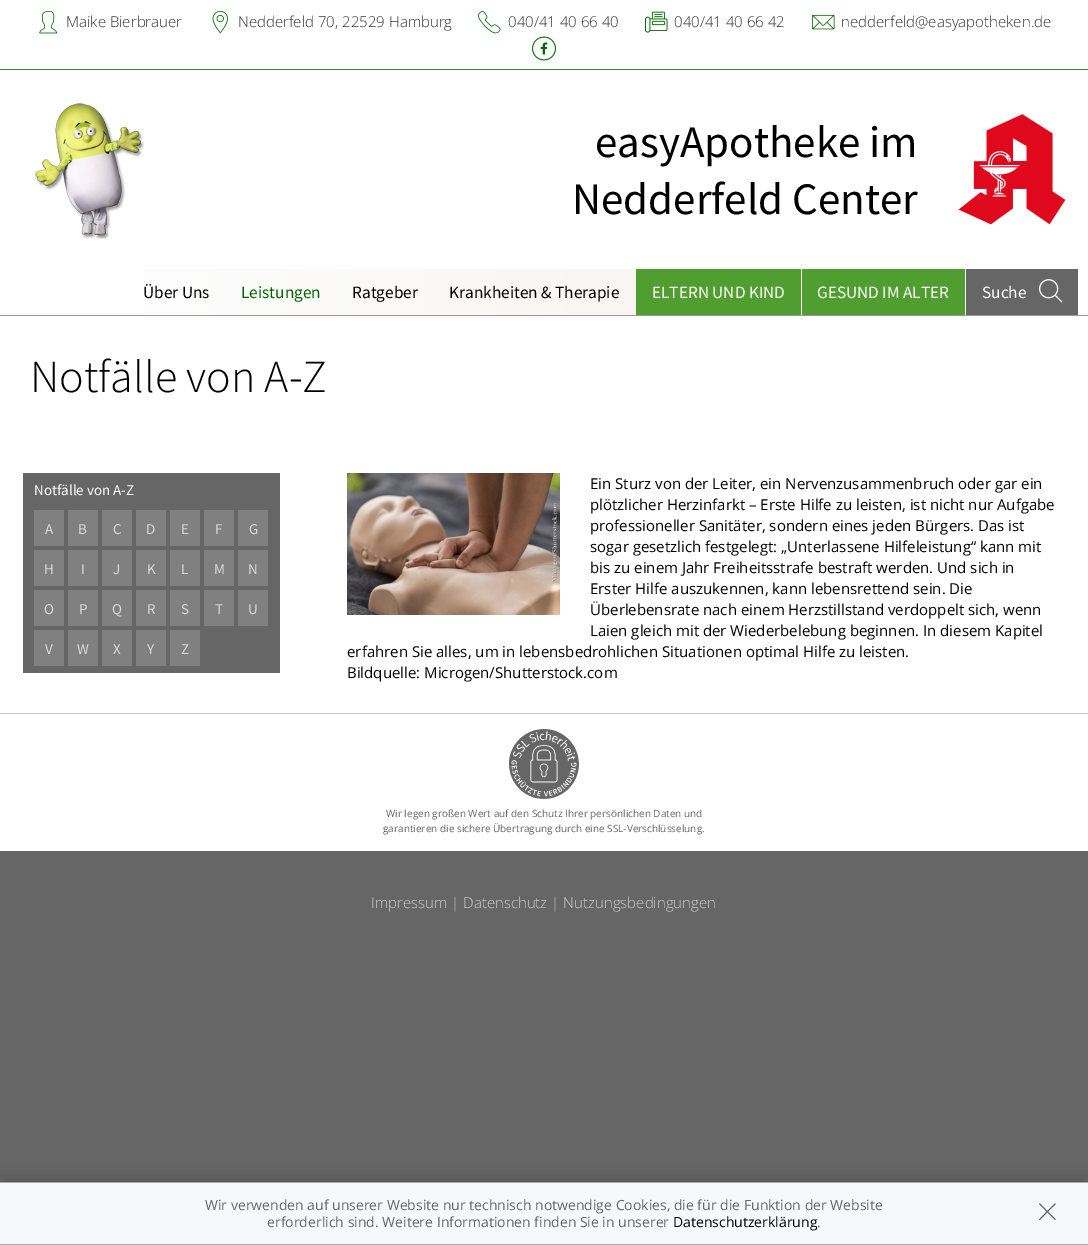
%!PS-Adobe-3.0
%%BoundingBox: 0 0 1088 1245
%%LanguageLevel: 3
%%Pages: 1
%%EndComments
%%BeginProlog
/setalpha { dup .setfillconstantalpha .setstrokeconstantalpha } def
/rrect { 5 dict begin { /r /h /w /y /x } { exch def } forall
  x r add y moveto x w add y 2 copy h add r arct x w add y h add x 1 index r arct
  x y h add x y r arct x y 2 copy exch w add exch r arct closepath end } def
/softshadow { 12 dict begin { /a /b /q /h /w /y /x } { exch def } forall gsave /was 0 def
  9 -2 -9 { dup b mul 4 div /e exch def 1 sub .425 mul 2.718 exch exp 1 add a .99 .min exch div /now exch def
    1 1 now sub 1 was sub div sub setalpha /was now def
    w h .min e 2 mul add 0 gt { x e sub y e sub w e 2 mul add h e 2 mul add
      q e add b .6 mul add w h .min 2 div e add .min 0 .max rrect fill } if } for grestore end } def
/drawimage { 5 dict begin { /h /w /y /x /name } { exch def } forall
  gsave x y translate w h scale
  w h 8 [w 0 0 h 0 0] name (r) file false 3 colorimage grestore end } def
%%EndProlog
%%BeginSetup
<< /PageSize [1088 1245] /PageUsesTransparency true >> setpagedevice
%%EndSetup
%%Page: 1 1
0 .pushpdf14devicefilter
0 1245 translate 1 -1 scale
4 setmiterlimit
0.4 setgray
0 0 1088 1245 rectfill
1 setgray
0 0 1088 315 rectfill
0.192 0.549 0.165 setrgbcolor
0 69 1088 1 rectfill
(images/1.raw) 39 10 19 24 drawimage
(images/2.raw) 212 10 16 24 drawimage
(images/3.raw) 478 11 23 23 drawimage
(images/4.raw) 645 11 23 22 drawimage
(images/5.raw) 812 14 23 16 drawimage
(images/6.raw) 532 36 24 25 drawimage
(images/7.raw) 35 103 109 136 drawimage
(images/8.raw) 35 103 109 136 drawimage
(images/9.raw) 958 114 108 111 drawimage
gsave newpath 144 269 moveto 635 269 lineto 635 315 lineto 144 315 lineto closepath clip newpath
<< /ShadingType 2 /ColorSpace /DeviceRGB /Coords [10 292 1078 292] /Extend [true true] /Function << /FunctionType 2 /Domain [0 1] /C0 [1 1 1] /C1 [0.953 0.937 0.922] /N 1 >> >> shfill grestore
0.314 0.62 0.184 setrgbcolor
636 269 165 46 rectfill
802 269 163 46 rectfill
0.4 setgray
966 269 112 46 rectfill
(images/10.raw) 1039 279 24 24 drawimage
1 setgray
0 316 1088 397 rectfill
0.6 setgray
0 315 1088 1 rectfill
0.4 setgray
23 473 257 200 rectfill
0.502 setgray
34 510 30 36 rectfill
68 510 30 36 rectfill
102 510 30 36 rectfill
136 510 30 36 rectfill
170 510 30 36 rectfill
204 510 30 36 rectfill
238 510 30 36 rectfill
34 550 30 36 rectfill
68 550 30 36 rectfill
102 550 30 36 rectfill
136 550 30 36 rectfill
170 550 30 36 rectfill
204 550 30 36 rectfill
238 550 30 36 rectfill
34 590 30 36 rectfill
68 590 30 36 rectfill
102 590 30 36 rectfill
136 590 30 36 rectfill
170 590 30 36 rectfill
204 590 30 36 rectfill
238 590 30 36 rectfill
34 630 30 36 rectfill
68 630 30 36 rectfill
102 630 30 36 rectfill
136 630 30 36 rectfill
170 630 30 36 rectfill
(images/11.raw) 347 473 213 142 drawimage
1 setgray
0 714 1088 137 rectfill
0.8 setgray
0 713 1088 1 rectfill
(images/12.raw) 509 729 70 70 drawimage
0 setgray
0 1182 1088 63 0 10 0.2 softshadow
0.969 0.973 0.976 setrgbcolor
0 1183 1088 61 rectfill
0.663 setgray
0 1182 1088 1 rectfill
0 1244 1088 1 rectfill
(images/13.raw) 1039 1203 17 17 drawimage
/OpenSans-Light [15 0 0 -15 0 0] selectfont
0.2 setgray
66 27 moveto (Maike Bierbrauer) show
238 27 moveto (Nedderfeld 70, 22529 Hamburg) show
508 27 moveto (040/41 40 66 40) show
674 27 moveto (040/41 40 66 42) show
841 27 moveto (nedderfeld@easyapotheken.de) show
/SourceSansPro-Regular [45 0 0 -45 0 0] selectfont
0 setgray
595 157 moveto (easyApotheke im) show
572 214 moveto (Nedderfeld Center) show
/SourceSansPro-Regular [17.25 0 0 -17.25 0 0] selectfont
143 298 moveto (Über Uns) show
0 0.4 0 setrgbcolor
241 298 moveto (Leistungen) show
0 setgray
352 298 moveto (Ratgeber) show
449 298 moveto (Krankheiten & Therapie) show
1 setgray
652 298 moveto (ELTERN UND KIND) show
817 298 moveto (GESUND IM ALTER) show
982 298 moveto (Suche) show
/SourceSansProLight-Light [46 0 0 -46 0 0] selectfont
0 setgray
30 392 moveto (Notfälle von A-Z) show
/SourceSansPro-Regular [15 0 0 -15 0 0] selectfont
1 setgray
34 495 moveto (Notfälle von A-Z) show
0.851 setgray
45 534 moveto (A) show
78 534 moveto (B) show
113 534 moveto (C) show
146 534 moveto (D) show
181 534 moveto (E) show
215 534 moveto (F) show
249 534 moveto (G) show
44 574 moveto (H) show
81 574 moveto (I) show
113 574 moveto (J) show
147 574 moveto (K) show
181 574 moveto (L) show
214 574 moveto (M) show
248 574 moveto (N) show
44 614 moveto (O) show
79 614 moveto (P) show
112 614 moveto (Q) show
147 614 moveto (R) show
181 614 moveto (S) show
215 614 moveto (T) show
248 614 moveto (U) show
45 654 moveto (V) show
77 654 moveto (W) show
113 654 moveto (X) show
147 654 moveto (Y) show
181 654 moveto (Z) show
/OpenSans-Regular [15 0 0 -15 0 0] selectfont
0 setgray
590 489 moveto (Ein Sturz von der Leiter, ein Nervenzusammenbruch oder gar ein) show
590 510 moveto (plötzlicher Herzinfarkt – Erste Hilfe zu leisten, ist nicht nur Aufgabe) show
590 531 moveto (professioneller Sanitäter, sondern eines jeden Bürgers. Das ist) show
590 552 moveto (sogar gesetzlich festgelegt: „Unterlassene Hilfeleistung“ kann mit) show
590 573 moveto (bis zu einem Jahr Freiheitsstrafe bestraft werden. Und sich in) show
590 594 moveto (Erster Hilfe auszukennen, kann lebensrettend sein. Die) show
590 615 moveto (Überlebensrate nach einem Herzstillstand verdoppelt sich, wenn) show
590 636 moveto (Laien gleich mit der Wiederbelebung beginnen. In diesem Kapitel) show
347 657 moveto (erfahren Sie alles, um in lebensbedrohlichen Situationen optimal Hilfe zu leisten.) show
347 678 moveto (Bildquelle: Microgen/Shutterstock.com) show
/OpenSans-Regular [10 0 0 -10 0 0] selectfont
0.4 setgray
386 817 moveto (Wir legen großen Wert auf den Schutz Ihrer persönlichen Daten und) show
383 832 moveto (garantieren die sichere Übertragung durch eine SSL-Verschlüsselung.) show
/OpenSans-Light [15 0 0 -15 0 0] selectfont
0.8 setgray
371 908 moveto (Impressum | Datenschutz | Nutzungsbedingungen) show
/OpenSans-Regular [14 0 0 -14 0 0] selectfont
0.4 setgray
205 1210 moveto (Wir verwenden auf unserer Website nur technisch notwendige Cookies, die für die Funktion der Website) show
267 1227 moveto (erforderlich sind. Weitere Informationen finden Sie in unserer) show
0 setgray
673 1227 moveto (Datenschutzerklärung) show
0.4 setgray
817 1227 moveto (.) show
.poppdf14devicefilter showpage
%%EOF
